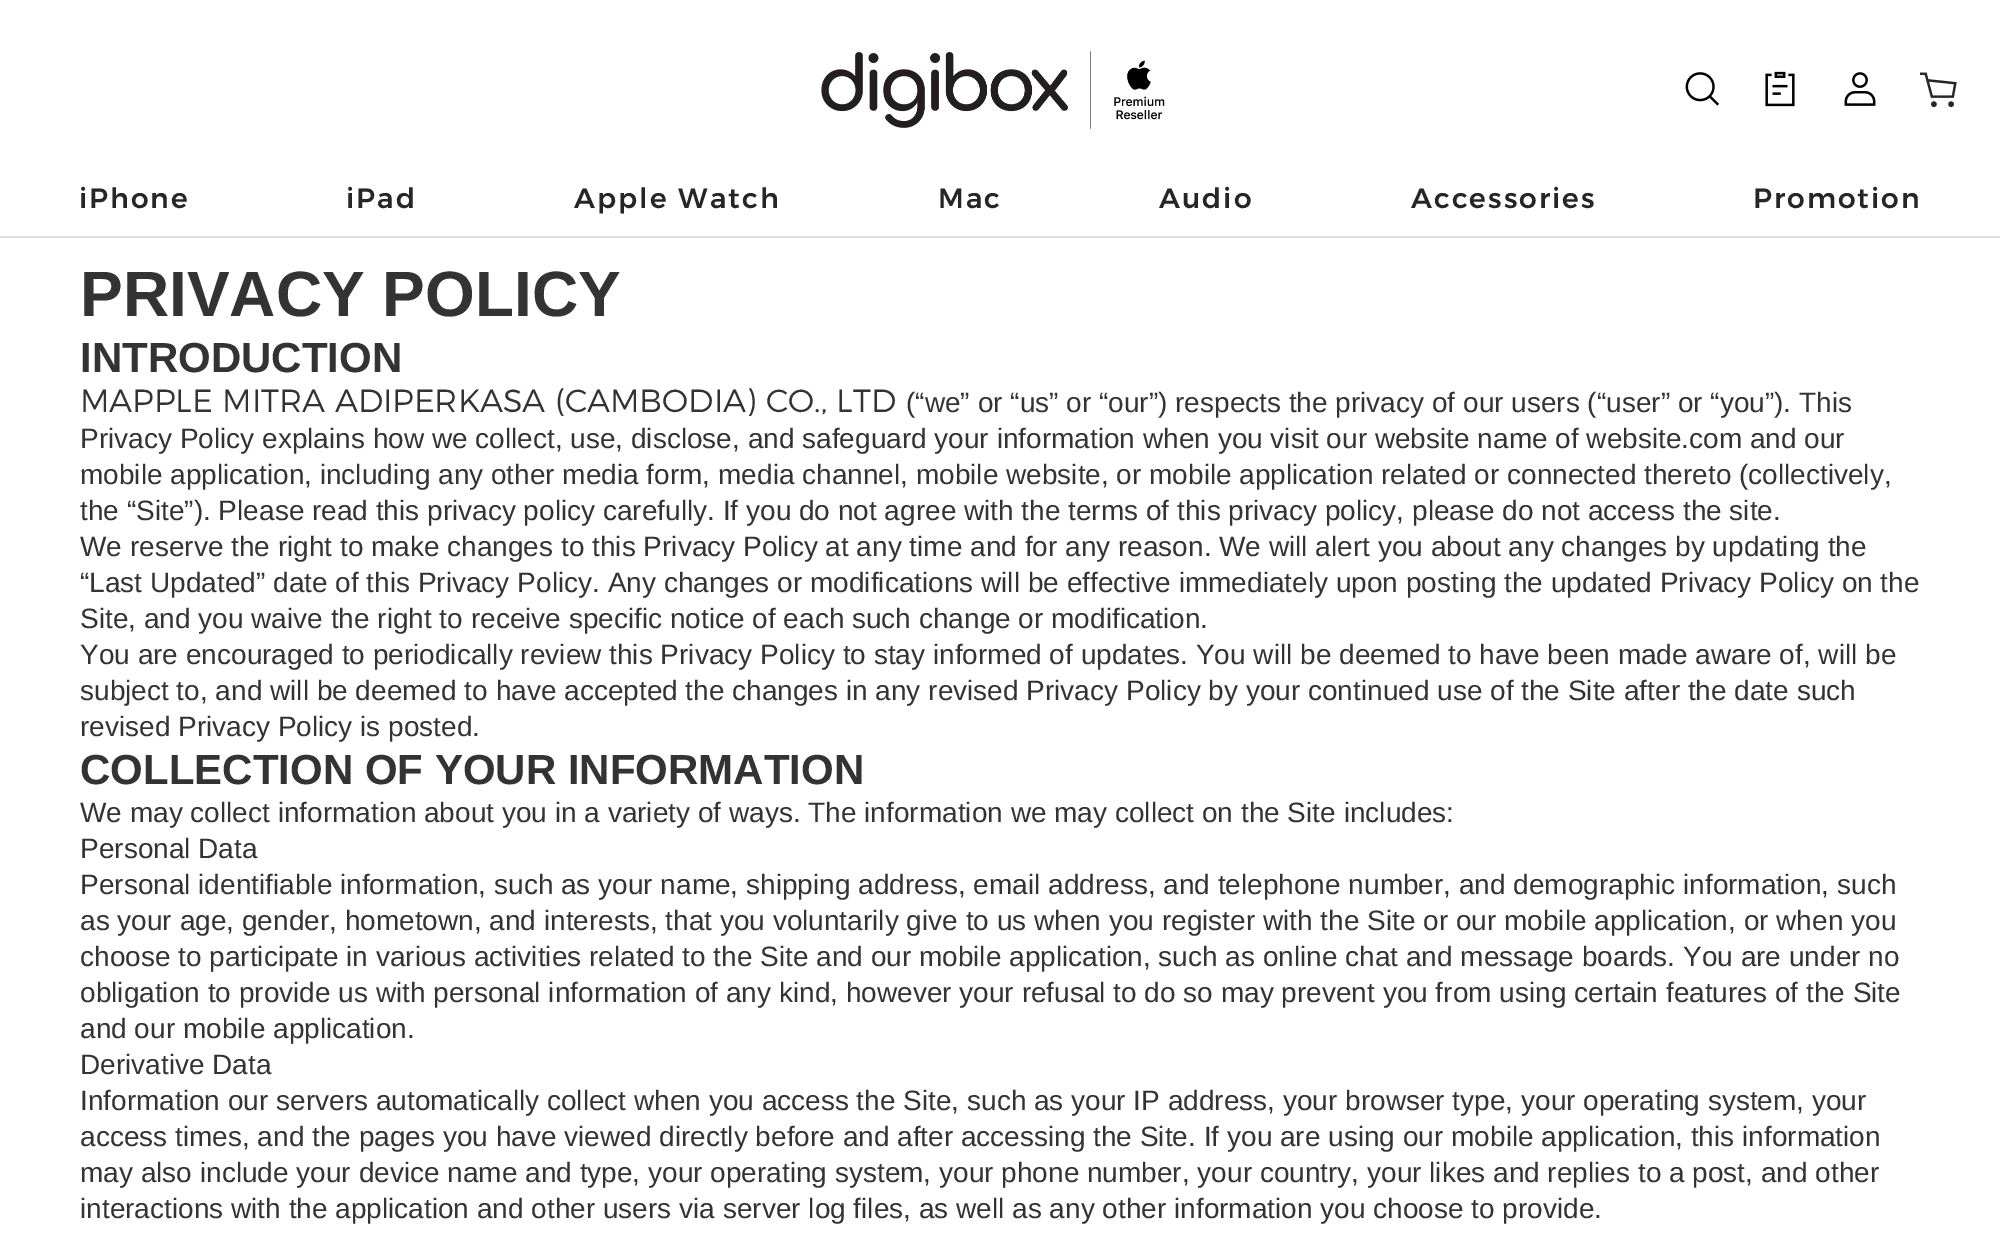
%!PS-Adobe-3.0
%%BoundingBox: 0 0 2000 1242
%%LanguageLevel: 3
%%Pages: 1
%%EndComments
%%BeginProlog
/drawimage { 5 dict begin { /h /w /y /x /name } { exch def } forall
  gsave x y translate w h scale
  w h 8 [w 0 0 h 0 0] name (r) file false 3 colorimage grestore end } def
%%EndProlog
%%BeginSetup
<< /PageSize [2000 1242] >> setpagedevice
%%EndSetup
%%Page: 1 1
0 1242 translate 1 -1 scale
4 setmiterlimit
1 setgray
0 0 2000 1242 rectfill
0.878 setgray
0 236 2000 2 rectfill
(images/1.raw) 821 51 344 78 drawimage
(images/2.raw) 1685 72 34 34 drawimage
(images/3.raw) 1765 71 30 36 drawimage
(images/4.raw) 1844 72 32 34 drawimage
(images/5.raw) 1920 72 37 36 drawimage
/Montserrat-Medium [28 0 0 -28 0 0] selectfont
0.149 setgray
79 208 moveto 2 0 (iPhone) ashow
346 208 moveto 2 0 (iPad) ashow
574 208 moveto 2 0 (Apple Watch) ashow
938 208 moveto 2 0 (Mac) ashow
1159 208 moveto 2 0 (Audio) ashow
1411 208 moveto 2 0 (Accessories) ashow
1753 208 moveto 2 0 (Promotion) ashow
/LiberationSans-Bold [64 0 0 -64 0 0] selectfont
0.2 setgray
80 316 moveto (PRIVACY POLICY) show
/LiberationSans-Bold [42 0 0 -42 0 0] selectfont
80 372 moveto (INTRODUCTION) show
/Montserrat-Light [32 0 0 -32 0 0] selectfont
80 412 moveto (MAPPLE MITRA ADIPERKASA \(CAMBODIA\) CO., LTD) show
/LiberationSans-Regular [28 0 0 -28 0 0] selectfont
906 412 moveto (\(“we” or “us” or “our”\) respects the privacy of our users \(“user” or “you”\). This) show
80 448 moveto (Privacy Policy explains how we collect, use, disclose, and safeguard your information when you visit our website name of website.com and our) show
80 484 moveto (mobile application, including any other media form, media channel, mobile website, or mobile application related or connected thereto \(collectively,) show
80 520 moveto (the “Site”\). Please read this privacy policy carefully. If you do not agree with the terms of this privacy policy, please do not access the site.) show
80 556 moveto (We reserve the right to make changes to this Privacy Policy at any time and for any reason. We will alert you about any changes by updating the) show
80 592 moveto (“Last Updated” date of this Privacy Policy. Any changes or modifications will be effective immediately upon posting the updated Privacy Policy on the) show
80 628 moveto (Site, and you waive the right to receive specific notice of each such change or modification.) show
80 664 moveto (You are encouraged to periodically review this Privacy Policy to stay informed of updates. You will be deemed to have been made aware of, will be) show
80 700 moveto (subject to, and will be deemed to have accepted the changes in any revised Privacy Policy by your continued use of the Site after the date such) show
80 736 moveto (revised Privacy Policy is posted.) show
/LiberationSans-Bold [42 0 0 -42 0 0] selectfont
80 784 moveto (COLLECTION OF YOUR INFORMATION) show
/LiberationSans-Regular [28 0 0 -28 0 0] selectfont
80 822 moveto (We may collect information about you in a variety of ways. The information we may collect on the Site includes:) show
80 858 moveto (Personal Data) show
80 894 moveto (Personal identifiable information, such as your name, shipping address, email address, and telephone number, and demographic information, such) show
80 930 moveto (as your age, gender, hometown, and interests, that you voluntarily give to us when you register with the Site or our mobile application, or when you) show
80 966 moveto (choose to participate in various activities related to the Site and our mobile application, such as online chat and message boards. You are under no) show
80 1002 moveto (obligation to provide us with personal information of any kind, however your refusal to do so may prevent you from using certain features of the Site) show
80 1038 moveto (and our mobile application.) show
80 1074 moveto (Derivative Data) show
80 1110 moveto (Information our servers automatically collect when you access the Site, such as your IP address, your browser type, your operating system, your) show
80 1146 moveto (access times, and the pages you have viewed directly before and after accessing the Site. If you are using our mobile application, this information) show
80 1182 moveto (may also include your device name and type, your operating system, your phone number, your country, your likes and replies to a post, and other) show
80 1218 moveto (interactions with the application and other users via server log files, as well as any other information you choose to provide.) show
showpage
%%EOF
